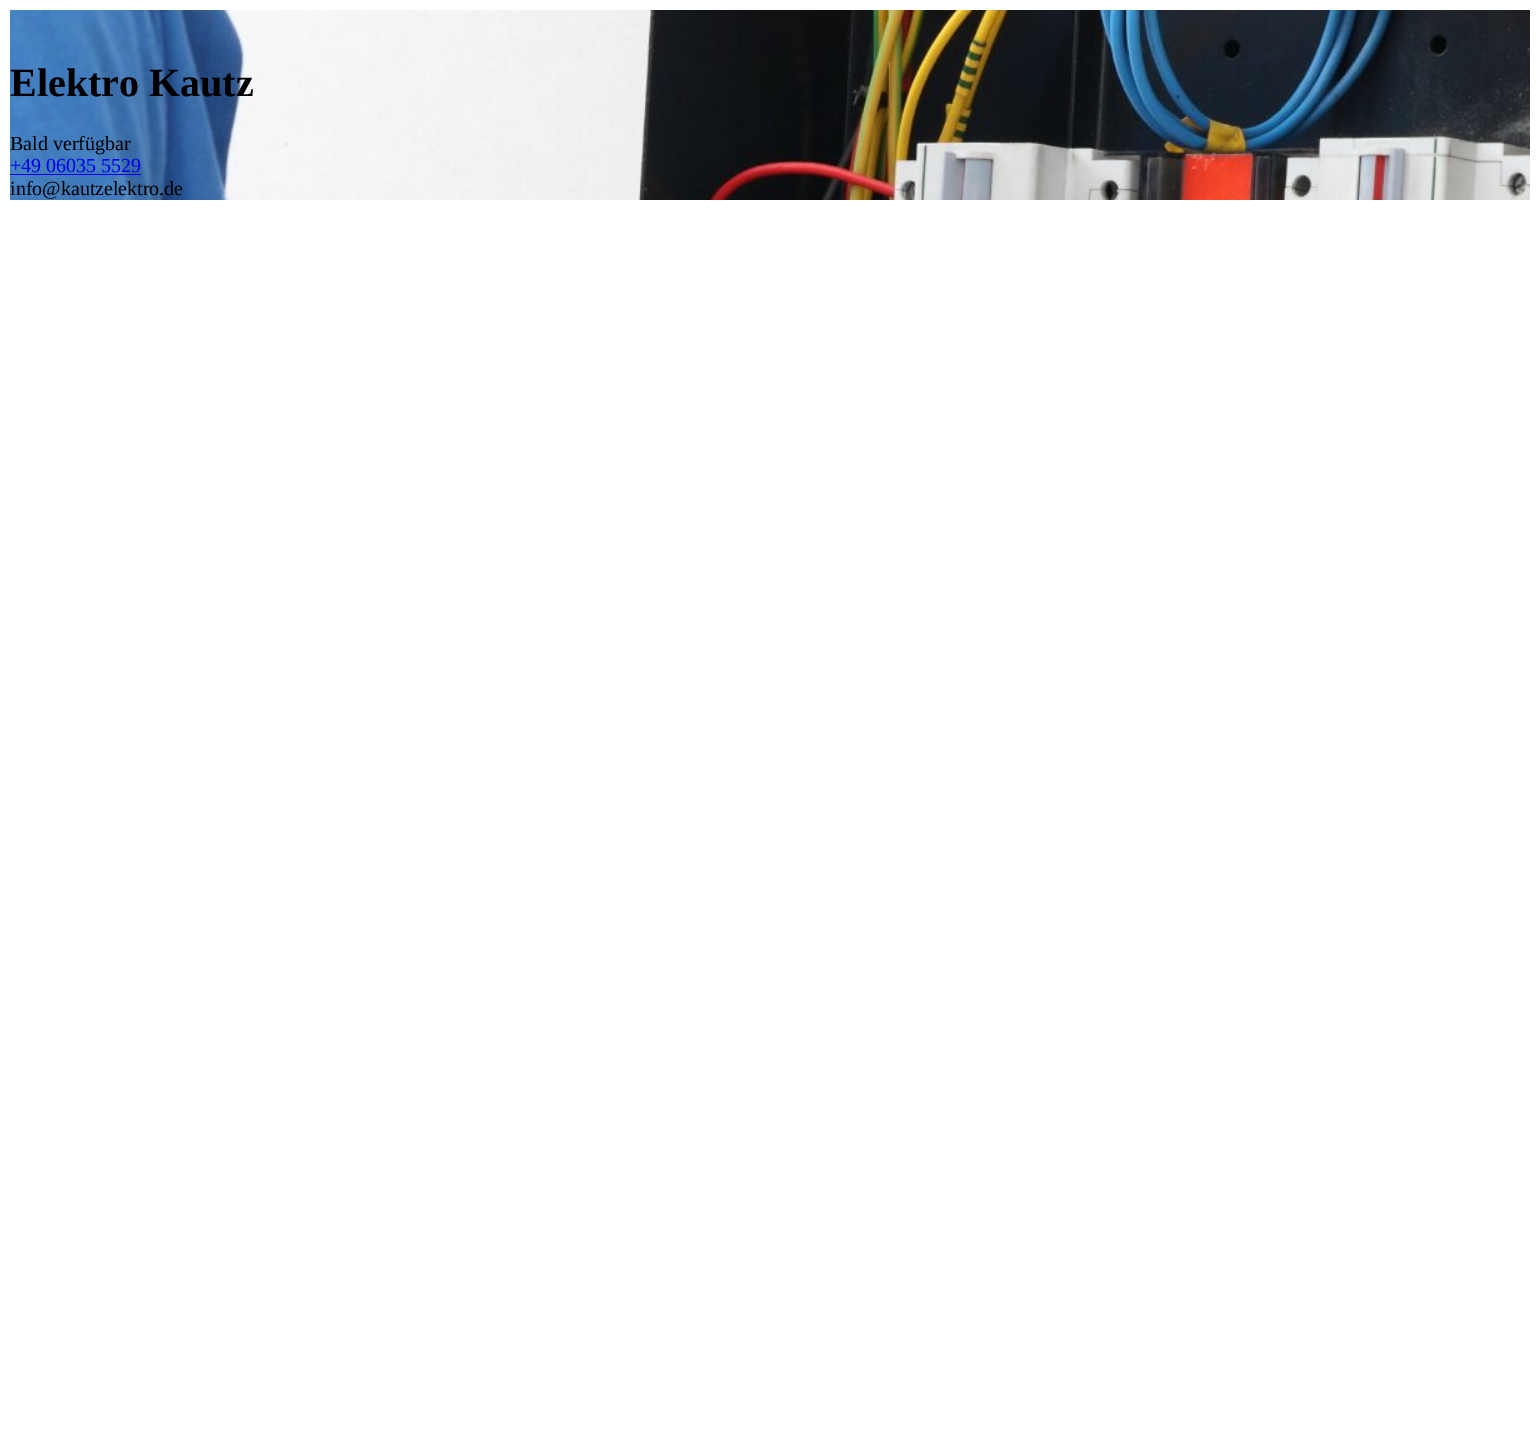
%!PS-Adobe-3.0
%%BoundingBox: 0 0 1539 1434
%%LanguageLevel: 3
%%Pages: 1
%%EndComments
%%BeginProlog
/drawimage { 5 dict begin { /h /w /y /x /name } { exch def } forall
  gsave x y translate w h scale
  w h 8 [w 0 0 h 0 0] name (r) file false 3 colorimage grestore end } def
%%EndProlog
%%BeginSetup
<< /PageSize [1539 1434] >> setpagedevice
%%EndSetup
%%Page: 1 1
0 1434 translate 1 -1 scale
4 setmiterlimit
1 setgray
0 0 1539 1434 rectfill
(images/1.raw) 10 10 1520 190 drawimage
0 0 0.933 setrgbcolor
10 174 131 1 rectfill
/LiberationSerif-Bold [40 0 0 -40 0 0] selectfont
0 setgray
10 96 moveto (Elektro Kautz) show
/LiberationSerif-Regular [20 0 0 -20 0 0] selectfont
10 150 moveto (Bald verfügbar) show
0 0 0.933 setrgbcolor
10 172 moveto (+49 06035 5529) show
0 setgray
10 195 moveto (info@kautzelektro.de) show
showpage
%%EOF
